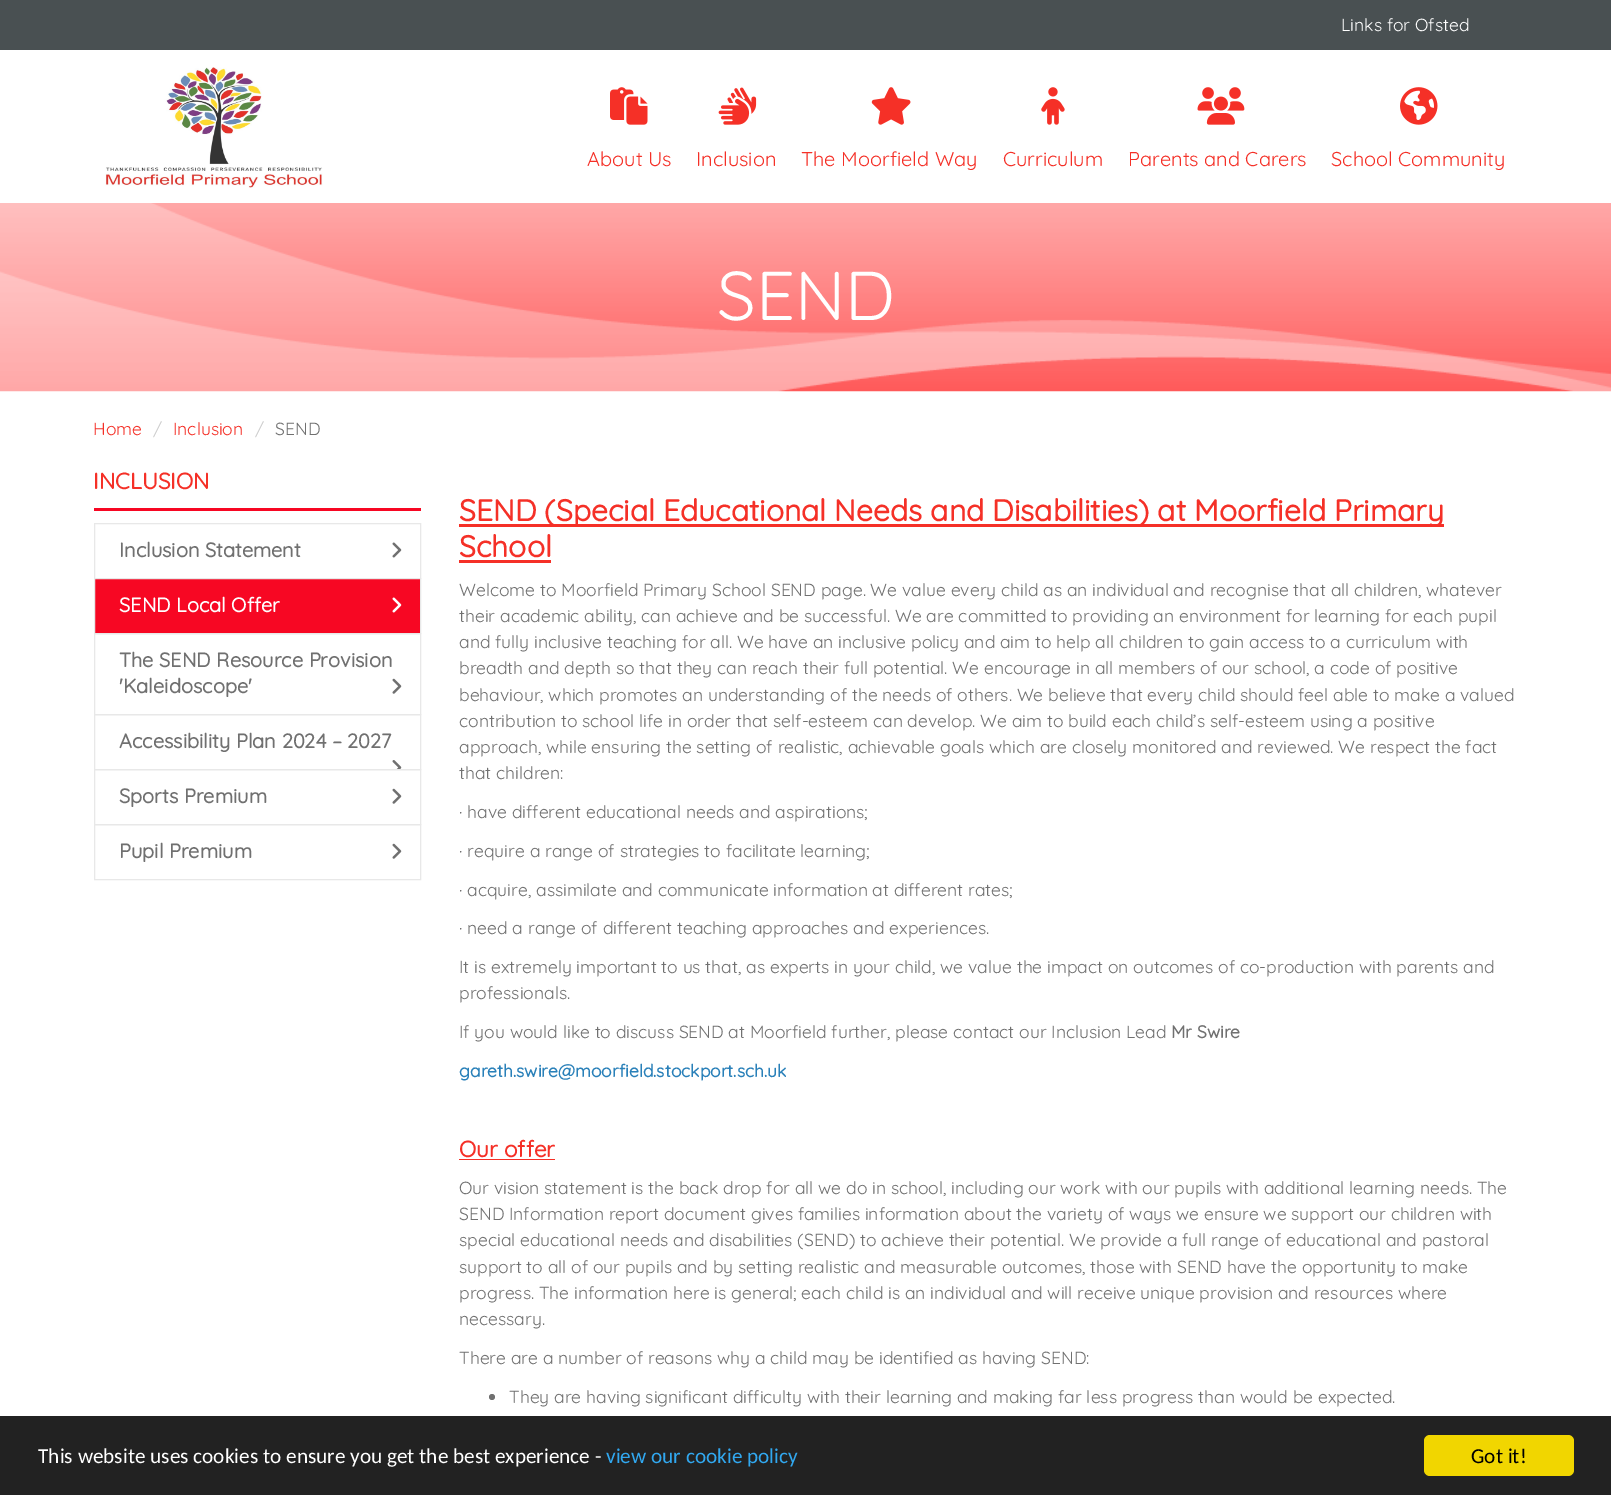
%!PS-Adobe-3.0
%%BoundingBox: 0 0 1611 1495
%%LanguageLevel: 3
%%Pages: 1
%%EndComments
%%BeginProlog
/rrect { 5 dict begin { /r /h /w /y /x } { exch def } forall
  x r add y moveto x w add y 2 copy h add r arct x w add y h add x 1 index r arct
  x y h add x y r arct x y 2 copy exch w add exch r arct closepath end } def
/drawimage { 5 dict begin { /h /w /y /x /name } { exch def } forall
  gsave x y translate w h scale
  w h 8 [w 0 0 h 0 0] name (r) file false 3 colorimage grestore end } def
%%EndProlog
%%BeginSetup
<< /PageSize [1611 1495] >> setpagedevice
%%EndSetup
%%Page: 1 1
0 1495 translate 1 -1 scale
4 setmiterlimit
1 setgray
0 0 1611 1495 rectfill
(images/1.raw) 105 67 218 121 drawimage
0.286 0.314 0.322 setrgbcolor
0 0 1611 50 rectfill
(images/2.raw) 610 87 38 38 drawimage
(images/3.raw) 718 87 39 38 drawimage
(images/4.raw) 871 87 40 38 drawimage
(images/5.raw) 1041 87 24 38 drawimage
(images/6.raw) 1197 87 48 38 drawimage
(images/7.raw) 1400 87 38 38 drawimage
(images/8.raw) 0 203 1611 189 drawimage
0.969 0.027 0.137 setrgbcolor
94 508 327 3 rectfill
0.91 setgray
94.5 523.5 326 55 rectstroke
(images/9.raw) 392 542 10 16 drawimage
0.969 0.027 0.137 setrgbcolor
newpath 94.5 578.5 moveto 420.5 578.5 lineto 420.5 633.5 lineto 94.5 633.5 lineto closepath gsave fill grestore
0.91 setgray
stroke
(images/10.raw) 392 597 10 16 drawimage
94.5 633.5 326 81 rectstroke
(images/11.raw) 392 678 10 16 drawimage
94.5 714.5 326 55 rectstroke
(images/12.raw) 392 760 10 9 drawimage
94.5 769.5 326 55 rectstroke
(images/11.raw) 392 788 10 16 drawimage
94.5 824.5 326 55 rectstroke
(images/11.raw) 392 843 10 16 drawimage
0.961 0.188 0.153 setrgbcolor
459 524 985 3 rectfill
459 560 92 3 rectfill
459 1159 96 1 rectfill
0.439 setgray
newpath 492 1397 3 0 360 arc closepath fill
0.133 setgray
0 1416 1611 79 rectfill
0.945 0.839 0 setrgbcolor
1424 1435 150 41 6 rrect fill
/Quicksand-Light [17.5 0 0 -17.5 0 0] selectfont
1 setgray
1341 31 moveto (Links for Ofsted) show
/Quicksand-Light [20 0 0 -20 0 0] selectfont
0.961 0.188 0.153 setrgbcolor
587 166 moveto (About Us) show
696 166 moveto (Inclusion) show
801 166 moveto (The Moorfield Way) show
1003 166 moveto (Curriculum) show
1128 166 moveto (Parents and Carers) show
1331 166 moveto (School Community) show
/Quicksand-Light [69 0 0 -69 0 0] selectfont
1 setgray
717 320 moveto (SEND) show
/Quicksand-Light [17.5 0 0 -17.5 0 0] selectfont
0.961 0.188 0.153 setrgbcolor
93 435 moveto (Home) show
0.8 setgray
153 435 moveto (/) show
0.961 0.188 0.153 setrgbcolor
173 435 moveto (Inclusion) show
0.8 setgray
255 435 moveto (/) show
0.439 setgray
275 435 moveto (SEND) show
/Quicksand-Bold [22.5 0 0 -22.5 0 0] selectfont
0.961 0.188 0.153 setrgbcolor
93 489 moveto (INCLUSION) show
/Quicksand-Bold [20 0 0 -20 0 0] selectfont
0.439 setgray
119 557 moveto (Inclusion Statement) show
1 setgray
119 612 moveto (SEND Local Offer) show
0.439 setgray
119 667 moveto (The SEND Resource Provision) show
119 693 moveto ('Kaleidoscope') show
119 748 moveto (Accessibility Plan 2024 – 2027) show
119 803 moveto (Sports Premium) show
119 858 moveto (Pupil Premium) show
/Quicksand-Bold [30 0 0 -30 0 0] selectfont
0.961 0.188 0.153 setrgbcolor
459 521 moveto (SEND \(Special Educational Needs and Disabilities\) at Moorfield Primary) show
459 557 moveto (School) show
/Quicksand-Light [17.5 0 0 -17.5 0 0] selectfont
0.439 setgray
459 596 moveto (Welcome to Moorfield Primary School SEND page. We value every child as an individual and recognise that all children, whatever) show
459 622 moveto (their academic ability, can achieve and be successful. We are committed to providing an environment for learning for each pupil) show
459 648 moveto (and fully inclusive teaching for all. We have an inclusive policy and aim to help all children to gain access to a curriculum with) show
459 674 moveto (breadth and depth so that they can reach their full potential. We encourage in all members of our school, a code of positive) show
459 701 moveto (behaviour, which promotes an understanding of the needs of others. We believe that every child should feel able to make a valued) show
459 727 moveto (contribution to school life in order that self-esteem can develop. We aim to build each child’s self-esteem using a positive) show
459 753 moveto (approach, while ensuring the setting of realistic, achievable goals which are closely monitored and reviewed. We respect the fact) show
459 779 moveto (that children:) show
459 818 moveto (· have different educational needs and aspirations;) show
459 857 moveto (· require a range of strategies to facilitate learning;) show
459 896 moveto (· acquire, assimilate and communicate information at different rates;) show
459 934 moveto (· need a range of different teaching approaches and experiences.) show
459 973 moveto (It is extremely important to us that, as experts in your child, we value the impact on outcomes of co-production with parents and) show
459 999 moveto (professionals.) show
459 1038 moveto (If you would like to discuss SEND at Moorfield further, please contact our Inclusion Lead) show
/Quicksand-Bold [17.5 0 0 -17.5 0 0] selectfont
1171 1038 moveto (Mr Swire) show
0.161 0.502 0.725 setrgbcolor
459 1077 moveto (gareth.swire@moorfield.stockport.sch.uk) show
/Quicksand-Bold [22.5 0 0 -22.5 0 0] selectfont
0.961 0.188 0.153 setrgbcolor
459 1157 moveto (Our offer) show
/Quicksand-Light [17.5 0 0 -17.5 0 0] selectfont
0.439 setgray
459 1194 moveto (Our vision statement is the back drop for all we do in school, including our work with our pupils with additional learning needs. The) show
459 1220 moveto (SEND Information report document gives families information about the variety of ways we ensure we support our children with) show
459 1246 moveto (special educational needs and disabilities \(SEND\) to achieve their potential. We provide a full range of educational and pastoral) show
459 1273 moveto (support to all of our pupils and by setting realistic and measurable outcomes, those with SEND have the opportunity to make) show
459 1299 moveto (progress. The information here is general; each child is an individual and will receive unique provision and resources where) show
459 1325 moveto (necessary.) show
459 1364 moveto (There are a number of reasons why a child may be identified as having SEND:) show
509 1403 moveto (They are having significant difficulty with their learning and making far less progress than would be expected.) show
/Carlito-Regular [21.25 0 0 -21.25 0 0] selectfont
1 setgray
38 1463 moveto (This website uses cookies to ensure you get the best experience -) show
0.192 0.659 0.941 setrgbcolor
606 1463 moveto (view our cookie policy) show
0 setgray
1471 1463 moveto (Got it!) show
showpage
%%EOF
